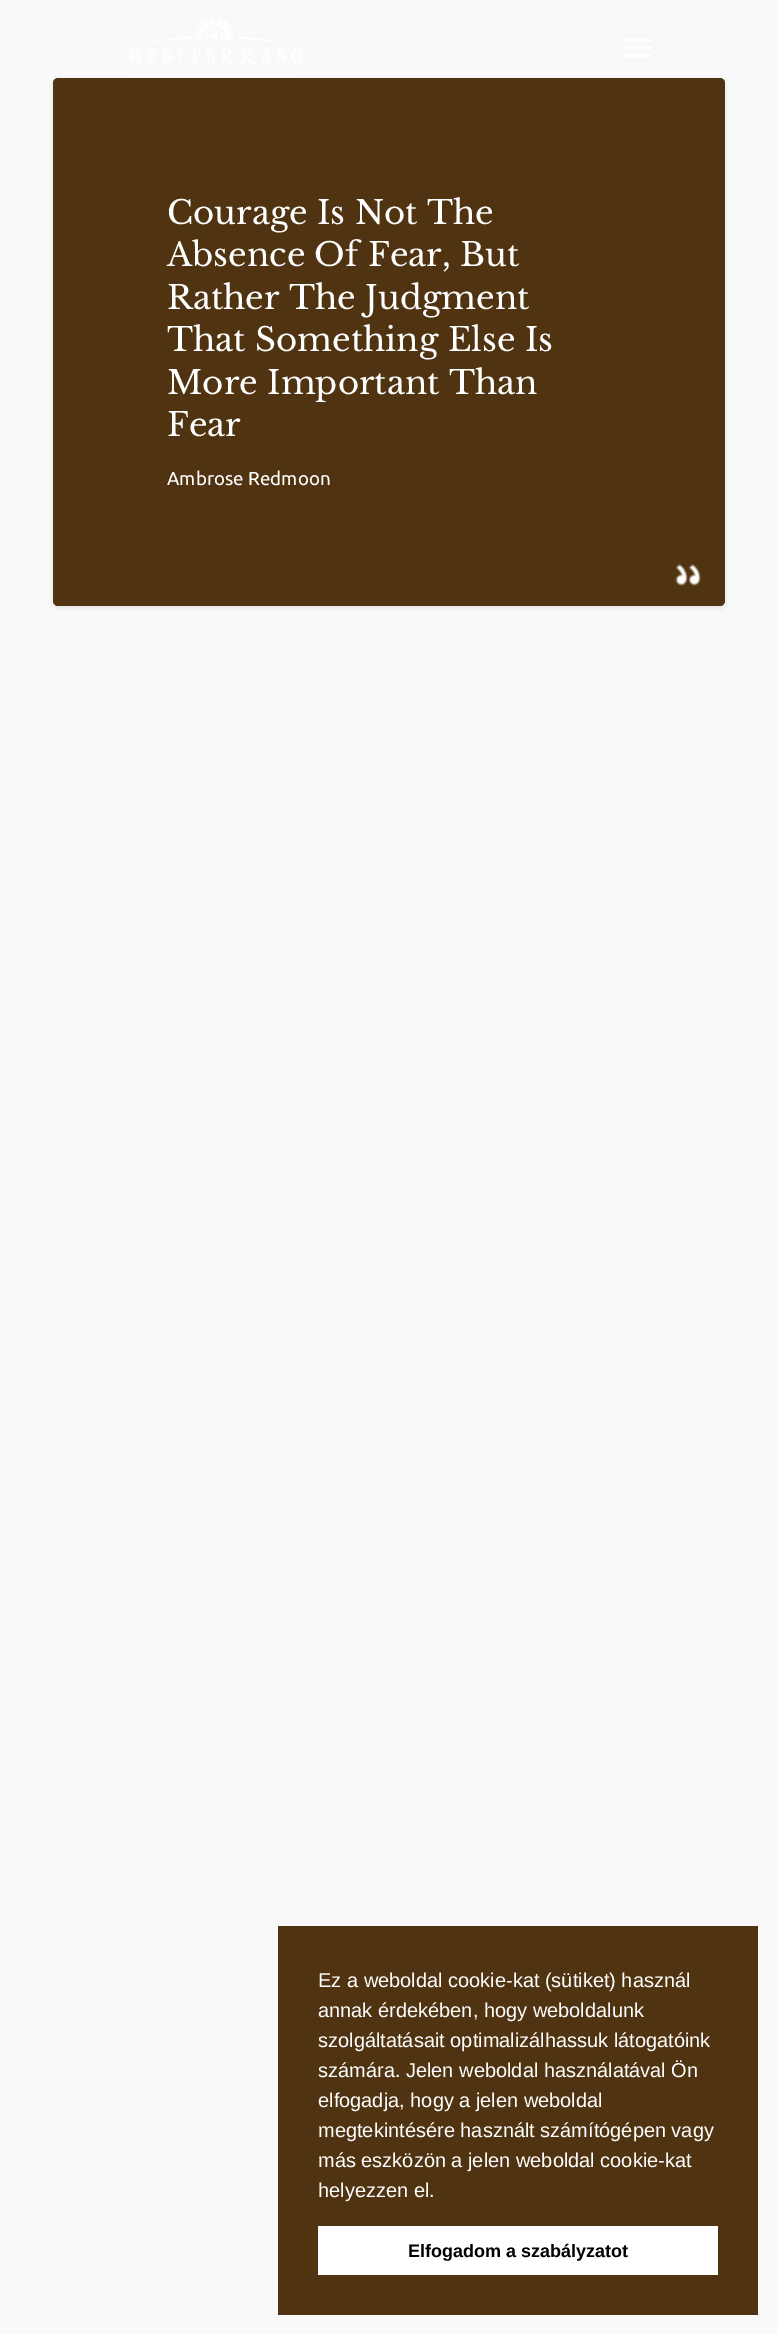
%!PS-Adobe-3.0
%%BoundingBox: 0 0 777 2334
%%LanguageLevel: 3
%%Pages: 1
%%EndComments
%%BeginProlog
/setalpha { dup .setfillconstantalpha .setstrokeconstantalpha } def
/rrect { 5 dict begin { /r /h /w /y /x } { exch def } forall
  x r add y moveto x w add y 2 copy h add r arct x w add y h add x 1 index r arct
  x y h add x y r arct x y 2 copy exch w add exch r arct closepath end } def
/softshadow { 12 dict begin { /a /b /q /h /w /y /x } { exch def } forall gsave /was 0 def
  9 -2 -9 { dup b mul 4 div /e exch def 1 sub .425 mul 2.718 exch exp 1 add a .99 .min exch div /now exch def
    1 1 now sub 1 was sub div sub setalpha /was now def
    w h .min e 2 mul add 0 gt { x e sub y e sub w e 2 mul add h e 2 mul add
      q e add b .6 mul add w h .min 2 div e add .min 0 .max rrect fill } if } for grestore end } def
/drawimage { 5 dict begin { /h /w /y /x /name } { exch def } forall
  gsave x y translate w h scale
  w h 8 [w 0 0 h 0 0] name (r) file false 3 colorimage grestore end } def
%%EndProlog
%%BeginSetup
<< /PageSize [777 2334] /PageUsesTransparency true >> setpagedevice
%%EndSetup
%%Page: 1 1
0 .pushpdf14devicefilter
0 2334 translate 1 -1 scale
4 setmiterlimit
0.976 setgray
0 0 777 2334 rectfill
0 setgray
53 79 672 529 5 2 0.08 softshadow
(images/1.raw) 129 17 172 60 drawimage
1 setgray
624 39 27 3 rectfill
624 54 27 3 rectfill
624 46 27 3 rectfill
0.314 0.204 0.071 setrgbcolor
53 78 672 528 5 rrect fill
(images/2.raw) 675 564 26 22 drawimage
278 1926 480 389 rectfill
1 setgray
318 2226 400 49 rectfill
/LibreBaskerville-Regular [32.5 0 0 -32.5 0 0] selectfont
167 224 moveto (Courage Is Not The) show
167 266 moveto (Absence Of Fear, But) show
167 309 moveto (Rather The Judgment) show
167 351 moveto (That Something Else Is) show
167 394 moveto (More Important Than) show
167 436 moveto (Fear) show
/Ubuntu-Regular [18.75 0 0 -18.75 0 0] selectfont
167 485 moveto (Ambrose Redmoon) show
/LiberationSans-Regular [20 0 0 -20 0 0] selectfont
318 1987 moveto (Ez a weboldal cookie-kat \(sütiket\) használ) show
318 2017 moveto (annak érdekében, hogy weboldalunk) show
318 2047 moveto (szolgáltatásait optimalizálhassuk látogatóink) show
318 2077 moveto (számára. Jelen weboldal használatával Ön) show
318 2107 moveto (elfogadja, hogy a jelen weboldal) show
318 2137 moveto (megtekintésére használt számítógépen vagy) show
318 2167 moveto (más eszközön a jelen weboldal cookie-kat) show
318 2197 moveto (helyezzen el.) show
/LiberationSans-Bold [18 0 0 -18 0 0] selectfont
0 setgray
408 2257 moveto (Elfogadom a szabályzatot) show
.poppdf14devicefilter showpage
%%EOF
